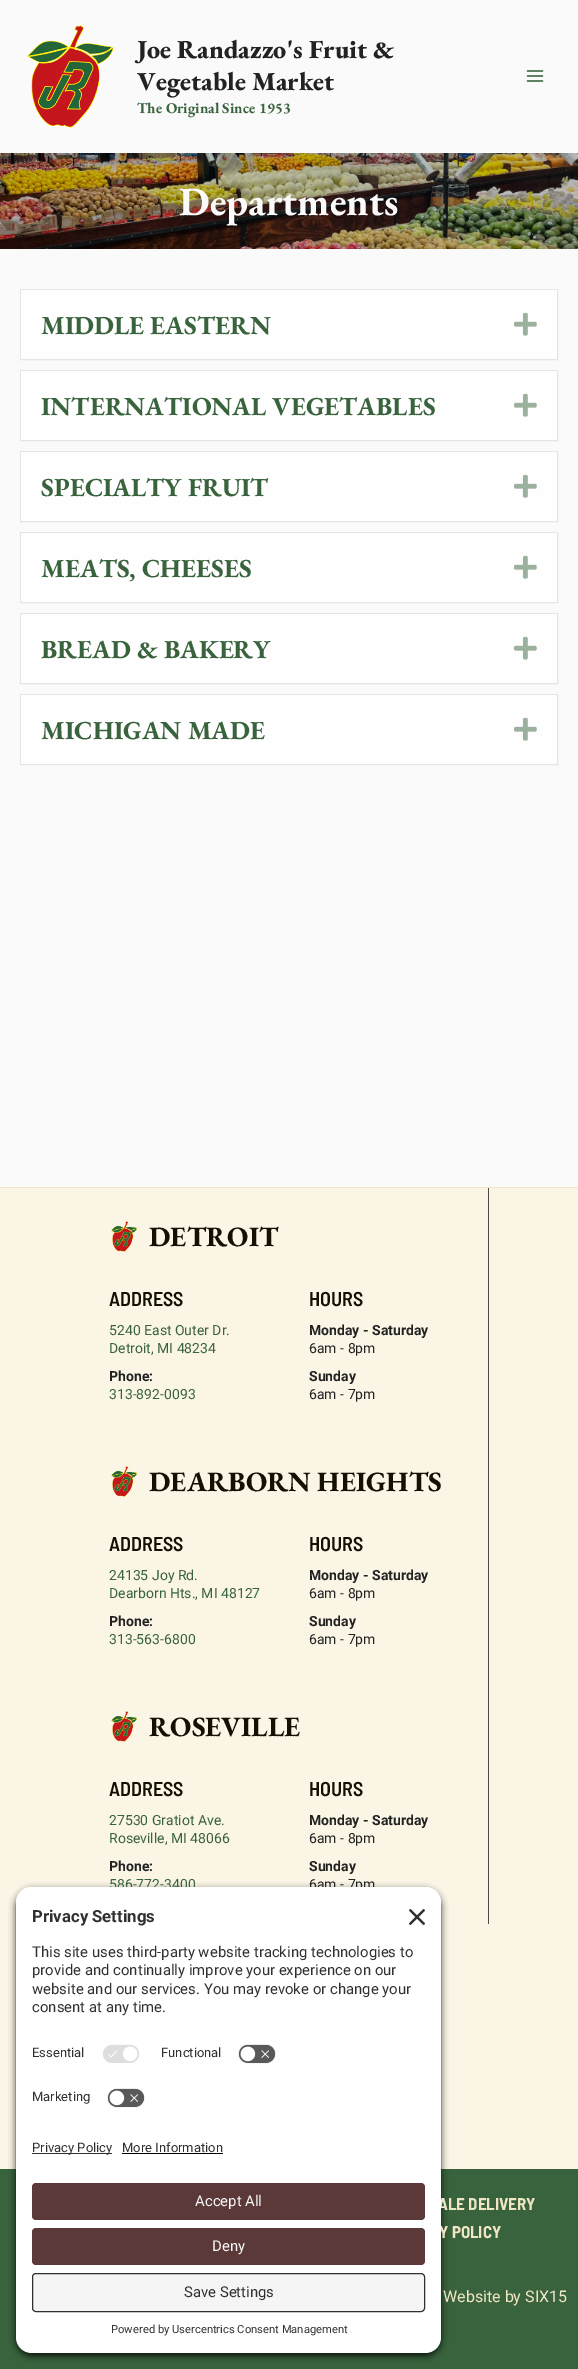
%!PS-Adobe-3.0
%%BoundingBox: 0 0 578 2369
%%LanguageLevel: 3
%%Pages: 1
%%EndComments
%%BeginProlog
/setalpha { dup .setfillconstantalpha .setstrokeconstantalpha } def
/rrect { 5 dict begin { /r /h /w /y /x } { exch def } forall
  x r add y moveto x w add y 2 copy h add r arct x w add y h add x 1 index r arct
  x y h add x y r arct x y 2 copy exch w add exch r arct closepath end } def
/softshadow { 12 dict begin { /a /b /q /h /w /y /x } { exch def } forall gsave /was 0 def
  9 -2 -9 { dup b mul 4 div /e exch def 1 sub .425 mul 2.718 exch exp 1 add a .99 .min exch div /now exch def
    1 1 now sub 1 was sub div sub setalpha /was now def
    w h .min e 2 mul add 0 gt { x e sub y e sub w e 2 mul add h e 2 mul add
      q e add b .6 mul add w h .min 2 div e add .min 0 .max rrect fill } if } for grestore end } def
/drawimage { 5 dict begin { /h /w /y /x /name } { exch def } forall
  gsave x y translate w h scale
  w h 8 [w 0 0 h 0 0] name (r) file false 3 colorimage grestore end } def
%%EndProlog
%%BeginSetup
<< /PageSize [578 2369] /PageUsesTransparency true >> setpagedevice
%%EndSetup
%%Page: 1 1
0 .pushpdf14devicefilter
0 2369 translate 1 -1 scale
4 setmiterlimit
0.98 setgray
0 0 578 2369 rectfill
(images/1.raw) 27 25 87 103 drawimage
(images/2.raw) 526 70 18 12 drawimage
(images/3.raw) 0 153 578 96 drawimage
0.898 setgray
20.5 289.5 537 70 rectstroke
0.996 setgray
21 290 536 69 rectfill
(images/4.raw) 514 312 23 24 drawimage
0.898 setgray
20.5 370.5 537 70 rectstroke
0.996 setgray
21 371 536 69 rectfill
(images/4.raw) 514 393 23 24 drawimage
0.898 setgray
20.5 451.5 537 70 rectstroke
0.996 setgray
21 452 536 69 rectfill
(images/4.raw) 514 474 23 24 drawimage
0.898 setgray
20.5 532.5 537 70 rectstroke
0.996 setgray
21 533 536 69 rectfill
(images/4.raw) 514 555 23 24 drawimage
0.898 setgray
20.5 613.5 537 70 rectstroke
0.996 setgray
21 614 536 69 rectfill
(images/4.raw) 514 636 23 24 drawimage
0.898 setgray
20.5 694.5 537 70 rectstroke
0.996 setgray
21 695 536 69 rectfill
(images/4.raw) 514 717 23 24 drawimage
0.98 0.961 0.898 setrgbcolor
0 1188 578 981 rectfill
0.941 0.902 0.773 setrgbcolor
0 1187 578 1 rectfill
0.29 setgray
488 1188 1 736 rectfill
(images/5.raw) 111 1221 26 31 drawimage
(images/6.raw) 111 1466 26 31 drawimage
(images/6.raw) 111 1711 26 31 drawimage
0.224 0.388 0.239 setrgbcolor
0 2169 578 200 rectfill
0 setgray
16 1890 425 466 16 3.5 0.8 softshadow
/EBGaramond-ExtraBold [26 0 0 -26 0 0] selectfont
0.133 setgray
137 58 moveto (Joe Randazzo's Fruit &) show
137 90 moveto (Vegetable Market) show
/EBGaramond-Bold [15 0 0 -15 0 0] selectfont
0.224 0.388 0.239 setrgbcolor
137 113 moveto (The Original Since 1953) show
/EBGaramond-Bold [40 0 0 -40 0 0] selectfont
0.98 setgray
179 215 moveto (Departments) show
/EBGaramond-Bold [26 0 0 -26 0 0] selectfont
0.224 0.388 0.239 setrgbcolor
41 334 moveto (MIDDLE EASTERN) show
41 415 moveto (INTERNATIONAL VEGETABLES) show
41 496 moveto (SPECIALTY FRUIT) show
41 577 moveto (MEATS, CHEESES) show
41 658 moveto (BREAD & BAKERY) show
41 739 moveto (MICHIGAN MADE) show
/EBGaramond-Bold [28 0 0 -28 0 0] selectfont
0.078 0.063 0.016 setrgbcolor
149 1246 moveto (DETROIT) show
/BarlowSemiCondensed-SemiBold [20 0 0 -20 0 0] selectfont
109 1306 moveto (ADDRESS) show
/Roboto-Regular [14 0 0 -14 0 0] selectfont
0.224 0.388 0.239 setrgbcolor
109 1335 moveto (5240 East Outer Dr.) show
109 1353 moveto (Detroit, MI 48234) show
/Roboto-Bold [14 0 0 -14 0 0] selectfont
0.133 setgray
109 1381 moveto (Phone:) show
/Roboto-Regular [14 0 0 -14 0 0] selectfont
0.224 0.388 0.239 setrgbcolor
109 1399 moveto (313-892-0093) show
/BarlowSemiCondensed-SemiBold [20 0 0 -20 0 0] selectfont
0.078 0.063 0.016 setrgbcolor
309 1306 moveto (HOURS) show
/Roboto-Bold [14 0 0 -14 0 0] selectfont
0.133 setgray
309 1335 moveto (Monday - Saturday) show
/Roboto-Regular [14 0 0 -14 0 0] selectfont
309 1353 moveto (6am - 8pm) show
/Roboto-Bold [14 0 0 -14 0 0] selectfont
309 1381 moveto (Sunday) show
/Roboto-Regular [14 0 0 -14 0 0] selectfont
309 1399 moveto (6am - 7pm) show
/EBGaramond-Bold [28 0 0 -28 0 0] selectfont
0.078 0.063 0.016 setrgbcolor
149 1491 moveto (DEARBORN HEIGHTS) show
/BarlowSemiCondensed-SemiBold [20 0 0 -20 0 0] selectfont
109 1551 moveto (ADDRESS) show
/Roboto-Regular [14 0 0 -14 0 0] selectfont
0.224 0.388 0.239 setrgbcolor
109 1580 moveto (24135 Joy Rd.) show
109 1598 moveto (Dearborn Hts., MI 48127) show
/Roboto-Bold [14 0 0 -14 0 0] selectfont
0.133 setgray
109 1626 moveto (Phone:) show
/Roboto-Regular [14 0 0 -14 0 0] selectfont
0.224 0.388 0.239 setrgbcolor
109 1644 moveto (313-563-6800) show
/BarlowSemiCondensed-SemiBold [20 0 0 -20 0 0] selectfont
0.078 0.063 0.016 setrgbcolor
309 1551 moveto (HOURS) show
/Roboto-Bold [14 0 0 -14 0 0] selectfont
0.133 setgray
309 1580 moveto (Monday - Saturday) show
/Roboto-Regular [14 0 0 -14 0 0] selectfont
309 1598 moveto (6am - 8pm) show
/Roboto-Bold [14 0 0 -14 0 0] selectfont
309 1626 moveto (Sunday) show
/Roboto-Regular [14 0 0 -14 0 0] selectfont
309 1644 moveto (6am - 7pm) show
/EBGaramond-Bold [28 0 0 -28 0 0] selectfont
0.078 0.063 0.016 setrgbcolor
149 1736 moveto (ROSEVILLE) show
/BarlowSemiCondensed-SemiBold [20 0 0 -20 0 0] selectfont
109 1796 moveto (ADDRESS) show
/Roboto-Regular [14 0 0 -14 0 0] selectfont
0.224 0.388 0.239 setrgbcolor
109 1825 moveto (27530 Gratiot Ave.) show
109 1843 moveto (Roseville, MI 48066) show
/Roboto-Bold [14 0 0 -14 0 0] selectfont
0.133 setgray
109 1871 moveto (Phone:) show
/Roboto-Regular [14 0 0 -14 0 0] selectfont
0.224 0.388 0.239 setrgbcolor
109 1889 moveto (586-772-3400) show
/BarlowSemiCondensed-SemiBold [20 0 0 -20 0 0] selectfont
0.078 0.063 0.016 setrgbcolor
309 1796 moveto (HOURS) show
/Roboto-Bold [14 0 0 -14 0 0] selectfont
0.133 setgray
309 1825 moveto (Monday - Saturday) show
/Roboto-Regular [14 0 0 -14 0 0] selectfont
309 1843 moveto (6am - 8pm) show
/Roboto-Bold [14 0 0 -14 0 0] selectfont
309 1871 moveto (Sunday) show
/Roboto-Regular [14 0 0 -14 0 0] selectfont
309 1889 moveto (6am - 7pm) show
/BarlowSemiCondensed-Bold [17 0 0 -17 0 0] selectfont
0.941 0.902 0.773 setrgbcolor
438 2210 moveto (ALE DELIVERY) show
439 2238 moveto (Y POLICY) show
/Roboto-Regular [16 0 0 -16 0 0] selectfont
443 2302 moveto (Website by SIX15) show
1 setgray
newpath 32 1887 moveto 425 1887 lineto 434 1887 441 1894 441 1903 curveto 441 2125 lineto 16 2125 lineto 16 1903 lineto 16 1894 23 1887 32 1887 curveto closepath fill
newpath 32 1887 moveto 425 1887 lineto 434 1887 441 1894 441 1903 curveto 441 2037 lineto 16 2037 lineto 16 1903 lineto 16 1894 23 1887 32 1887 curveto closepath fill
/Roboto-Bold [16.75 0 0 -16.75 0 0] selectfont
0.188 setgray
32 1922 moveto (Privacy Settings) show
(images/7.raw) 409 1909 16 16 drawimage
/Roboto-Regular [14.9 0 0 -14.9 0 0] selectfont
32 1957 moveto (This site uses third-party website tracking technologies to) show
32 1975 moveto (provide and continually improve your experience on our) show
32 1994 moveto (website and our services. You may revoke or change your) show
32 2012 moveto (consent at any time.) show
/Roboto-Regular [13 0 0 -13 0 0] selectfont
32 2057 moveto (Essential) show
(images/8.raw) 102 2044 38 19 drawimage
161 2057 moveto (Functional) show
(images/9.raw) 238 2044 38 20 drawimage
32 2101 moveto (Marketing) show
(images/9.raw) 107 2088 38 20 drawimage
1 setgray
newpath 16 2125 moveto 441 2125 lineto 441 2337 lineto 441 2346 434 2353 425 2353 curveto 32 2353 lineto 23 2353 16 2346 16 2337 curveto closepath fill
0.188 setgray
32 2153 80 1 rectfill
32 2152 moveto (Privacy Policy) show
122 2152 moveto (More Information) show
0 setgray
122 2153 101 1 rectfill
0.353 0.224 0.22 setrgbcolor
32 2183 393 37 4 rrect fill
/Roboto-Regular [14.9 0 0 -14.9 0 0] selectfont
0.98 setgray
195 2206 moveto (Accept All) show
0.353 0.224 0.22 setrgbcolor
32 2228 393 37 4 rrect fill
0.98 setgray
212 2251 moveto (Deny) show
0.961 setgray
32.5 2273.5 392 38 3.5 rrect gsave fill grestore
0.188 setgray
stroke
184 2297 moveto (Save Settings) show
/Roboto-Regular [11.2 0 0 -11.2 0 0] selectfont
111 2333 moveto (Powered by Usercentrics Consent Management) show
.poppdf14devicefilter showpage
%%EOF
